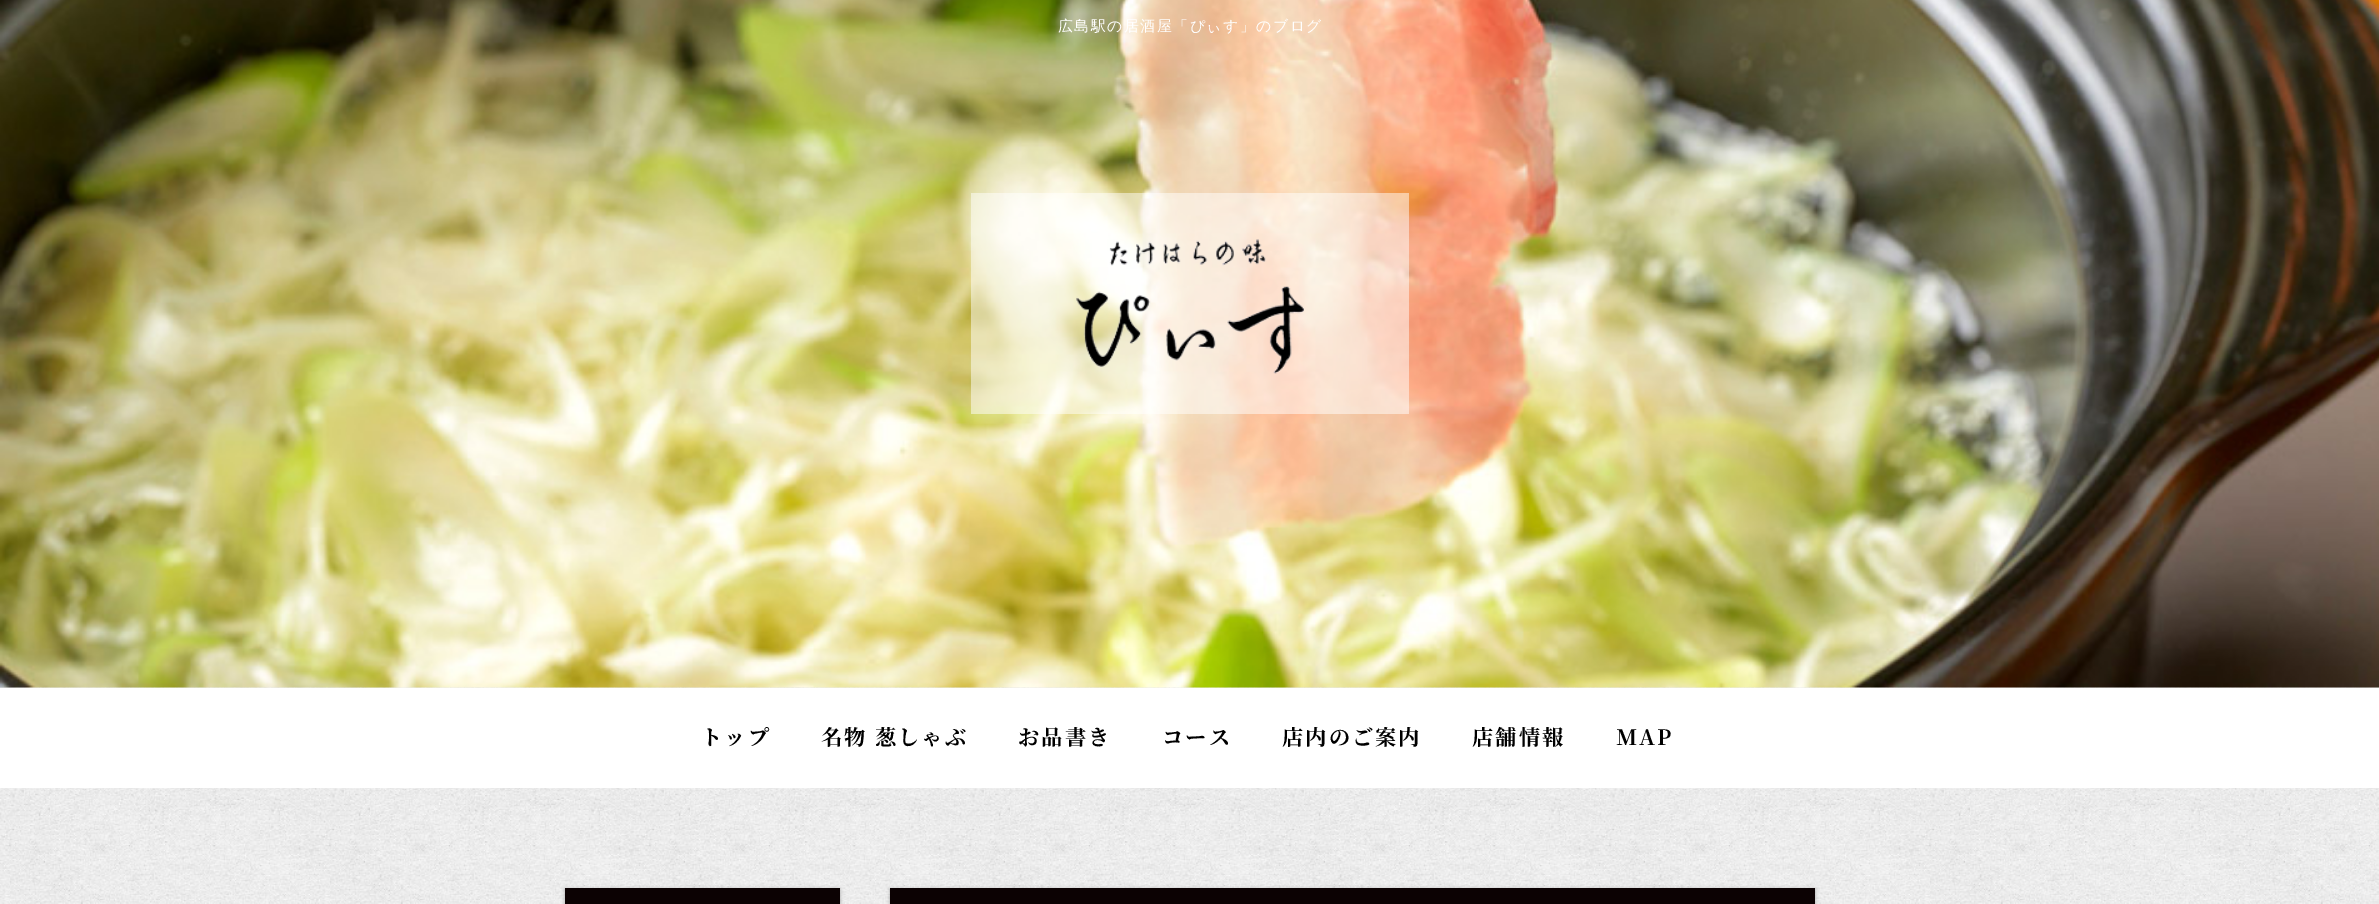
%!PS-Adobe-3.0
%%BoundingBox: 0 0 2379 904
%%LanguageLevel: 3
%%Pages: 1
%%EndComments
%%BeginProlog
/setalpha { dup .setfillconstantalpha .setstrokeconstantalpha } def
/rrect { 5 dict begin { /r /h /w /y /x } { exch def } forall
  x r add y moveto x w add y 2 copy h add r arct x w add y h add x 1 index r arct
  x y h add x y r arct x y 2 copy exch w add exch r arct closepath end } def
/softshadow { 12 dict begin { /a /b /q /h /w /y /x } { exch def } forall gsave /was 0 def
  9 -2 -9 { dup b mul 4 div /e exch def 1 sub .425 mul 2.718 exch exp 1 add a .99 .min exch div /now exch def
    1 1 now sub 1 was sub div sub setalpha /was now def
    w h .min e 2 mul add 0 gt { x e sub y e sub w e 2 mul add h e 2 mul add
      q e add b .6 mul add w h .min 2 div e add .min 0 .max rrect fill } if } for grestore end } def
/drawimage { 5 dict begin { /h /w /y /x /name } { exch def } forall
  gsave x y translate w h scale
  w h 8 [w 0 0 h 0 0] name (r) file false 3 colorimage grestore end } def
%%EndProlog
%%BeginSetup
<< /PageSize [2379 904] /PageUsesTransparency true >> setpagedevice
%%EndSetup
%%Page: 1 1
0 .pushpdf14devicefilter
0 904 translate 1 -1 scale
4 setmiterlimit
1 setgray
0 0 2379 904 rectfill
(images/1.raw) 0 687 2379 217 drawimage
(images/2.raw) 0 0 2379 688 drawimage
0.5 setalpha
971 193 438 221 rectfill
1 setalpha
(images/3.raw) 1076 239 228 135 drawimage
0 688 2379 100 rectfill
0 setgray
565 889 275 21 0 2 0.3 softshadow
0.047 0.008 0.012 setrgbcolor
565 888 275 16 rectfill
0 setgray
890 889 925 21 0 2 0.3 softshadow
0.047 0.008 0.012 setrgbcolor
890 888 925 16 rectfill
/WenQuanYiZenHei-Medium [14.9 0 0 -14.9 0 0] selectfont
1 setgray
1058 31 moveto 1.5 0 (広島駅の居酒屋「ぴぃす」のブログ) ashow
/NotoSerifJP-Bold [21.25 0 0 -21.25 0 0] selectfont
0 setgray
701 745 moveto 2 0 (トップ) ashow
821 745 moveto 2 0 (名物 葱しゃぶ) ashow
1018 745 moveto 2 0 (お品書き) ashow
1162 745 moveto 2 0 (コース) ashow
1282 745 moveto 2 0 (店内のご案内) ashow
1472 745 moveto 2 0 (店舗情報) ashow
1616 745 moveto 2 0 (MAP) ashow
.poppdf14devicefilter showpage
%%EOF
